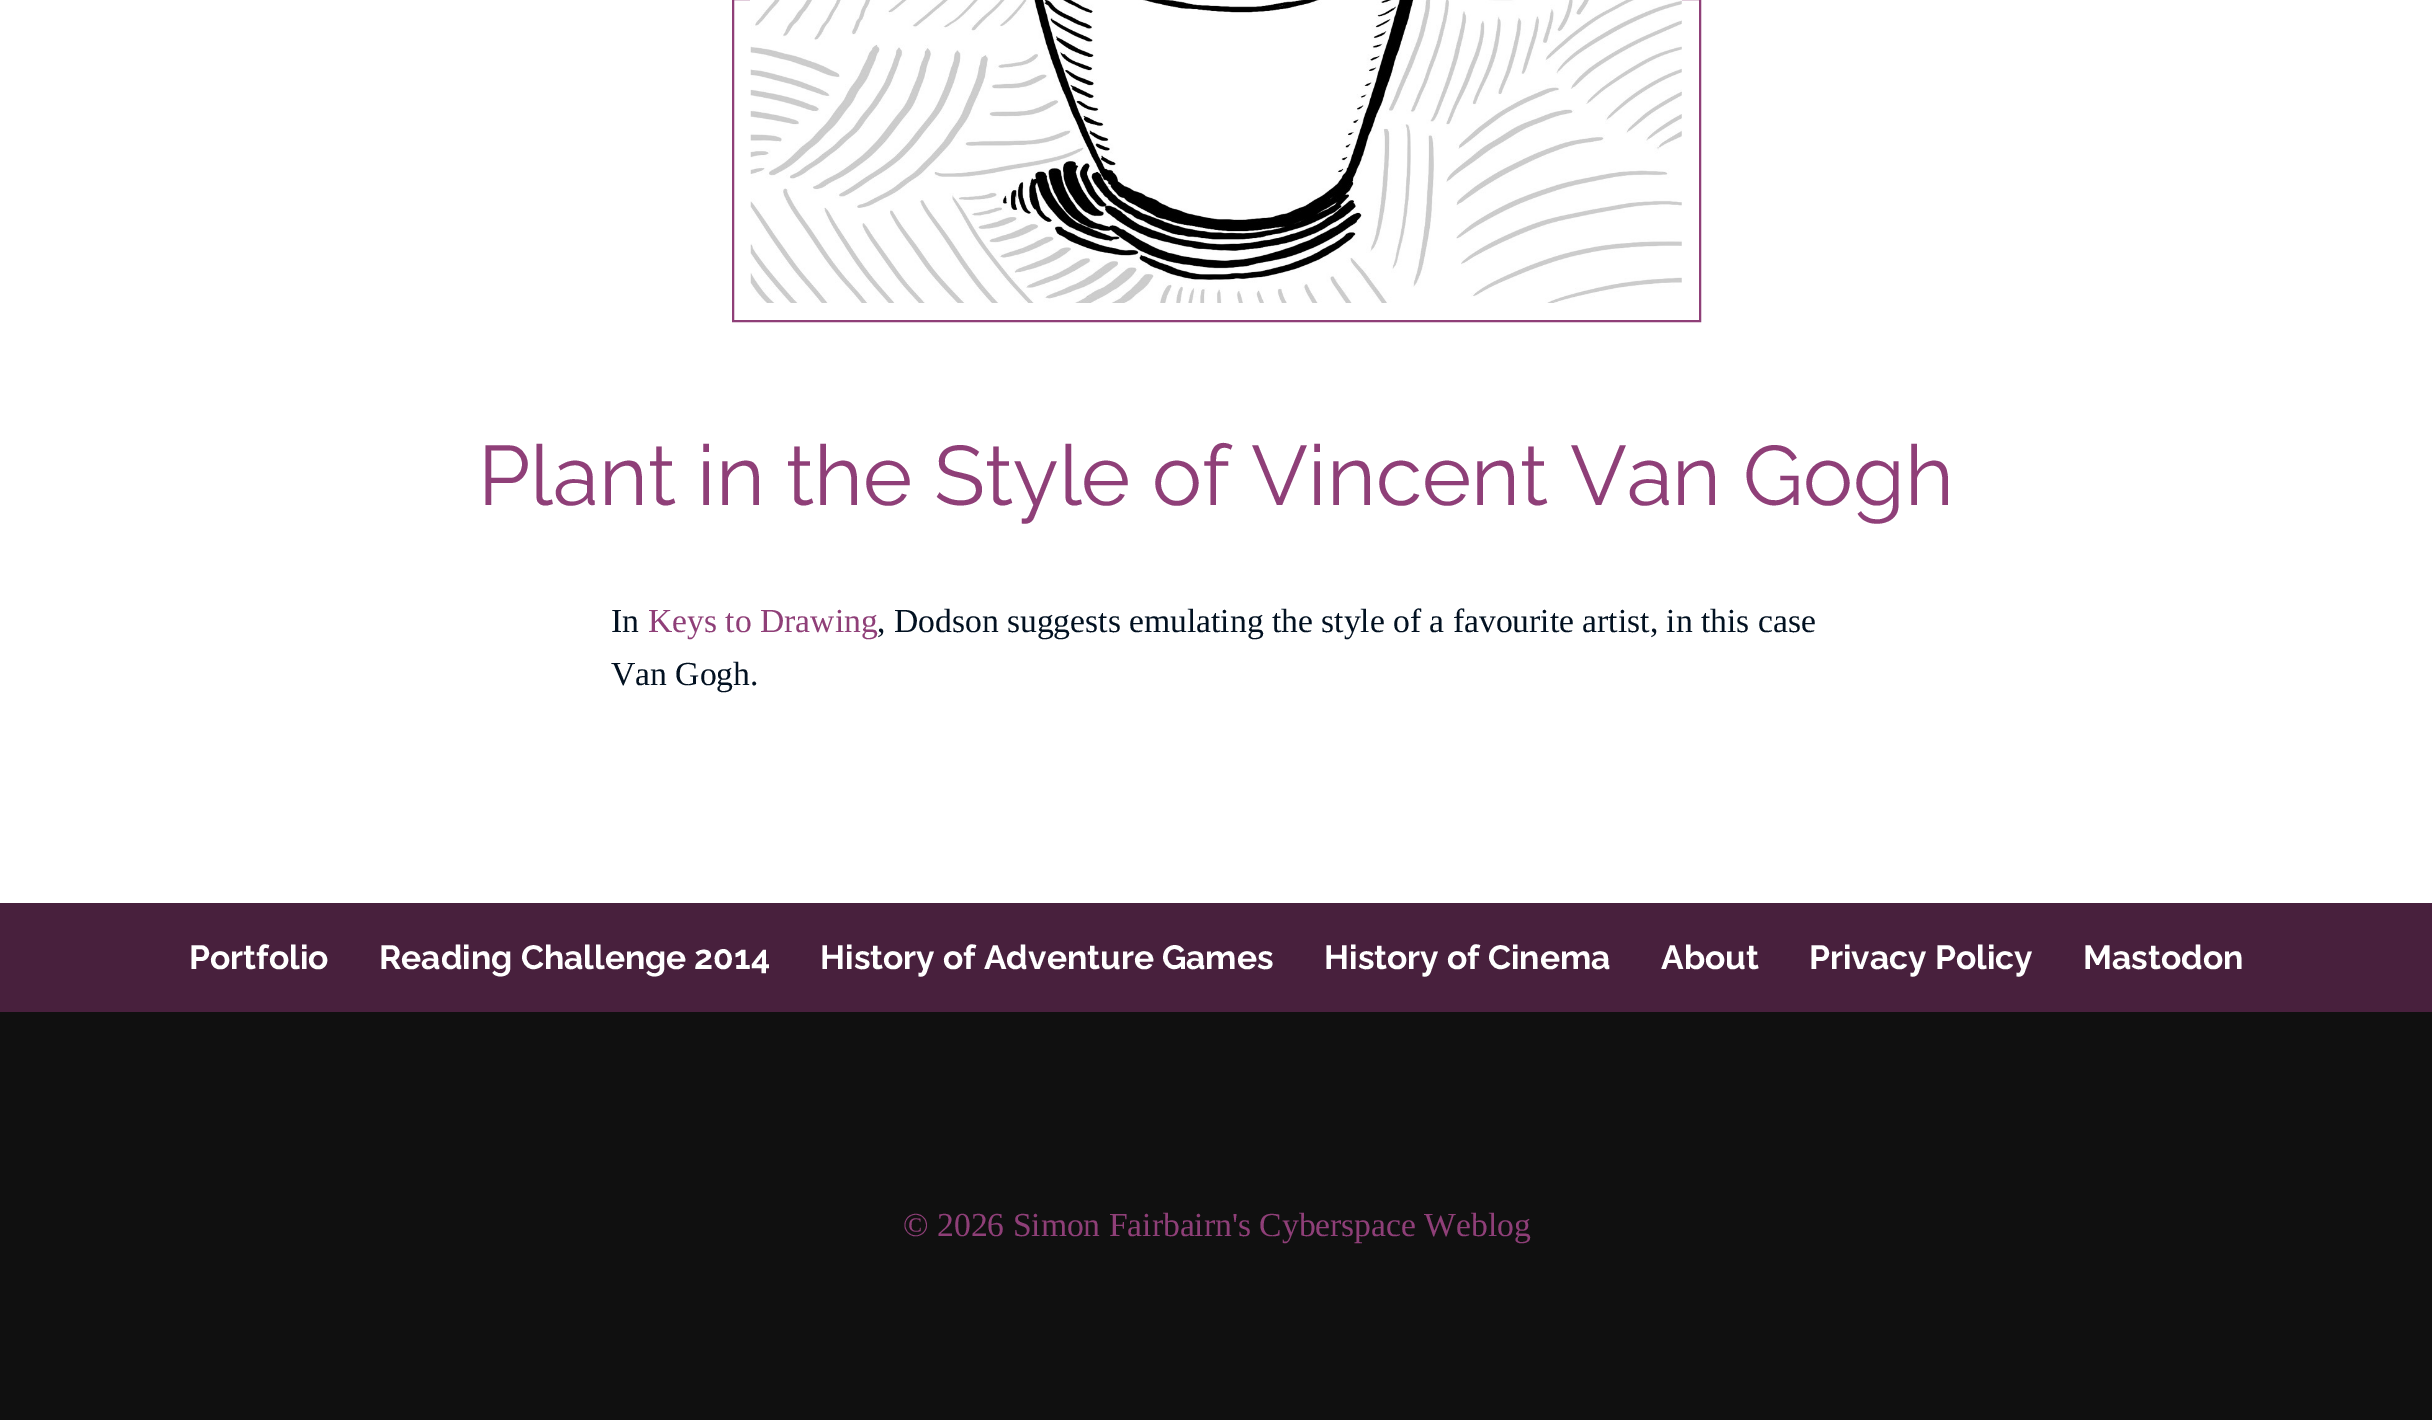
%!PS-Adobe-3.0
%%BoundingBox: 0 0 2432 1420
%%LanguageLevel: 3
%%Pages: 1
%%EndComments
%%BeginProlog
/drawimage { 5 dict begin { /h /w /y /x /name } { exch def } forall
  gsave x y translate w h scale
  w h 8 [w 0 0 h 0 0] name (r) file false 3 colorimage grestore end } def
%%EndProlog
%%BeginSetup
<< /PageSize [2432 1420] >> setpagedevice
%%EndSetup
%%Page: 1 1
0 1420 translate 1 -1 scale
4 setmiterlimit
1 setgray
0 0 2432 1420 rectfill
0.561 0.247 0.471 setrgbcolor
2 setlinewidth
733 -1 967 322 rectstroke
(images/1.raw) 750 0 932 303 drawimage
0.063 setgray
0 1012 2432 408 rectfill
0.282 0.125 0.239 setrgbcolor
0 903 2432 109 rectfill
/Raleway-Regular [84 0 0 -84 0 0] selectfont
0.561 0.247 0.471 setrgbcolor
478 505 moveto (Plant in the Style of Vincent Van Gogh) show
/LiberationSerif-Regular [33.6 0 0 -33.6 0 0] selectfont
0.008 0.067 0.129 setrgbcolor
611 632 moveto (In) show
0.561 0.247 0.471 setrgbcolor
648 632 moveto (Keys to Drawing) show
0.008 0.067 0.129 setrgbcolor
877 632 moveto (, Dodson suggests emulating the style of a favourite artist, in this case) show
611 685 moveto (Van Gogh.) show
/Raleway-Bold [33.6 0 0 -33.6 0 0] selectfont
1 setgray
189 969 moveto (Portfolio) show
379 969 moveto (Reading Challenge 2014) show
820 969 moveto (History of Adventure Games) show
1324 969 moveto (History of Cinema) show
1661 969 moveto (About) show
1809 969 moveto (Privacy Policy) show
2083 969 moveto (Mastodon) show
/LiberationSerif-Regular [33.6 0 0 -33.6 0 0] selectfont
0.561 0.247 0.471 setrgbcolor
903 1236 moveto (© 2026 Simon Fairbairn's Cyberspace Weblog) show
showpage
%%EOF
